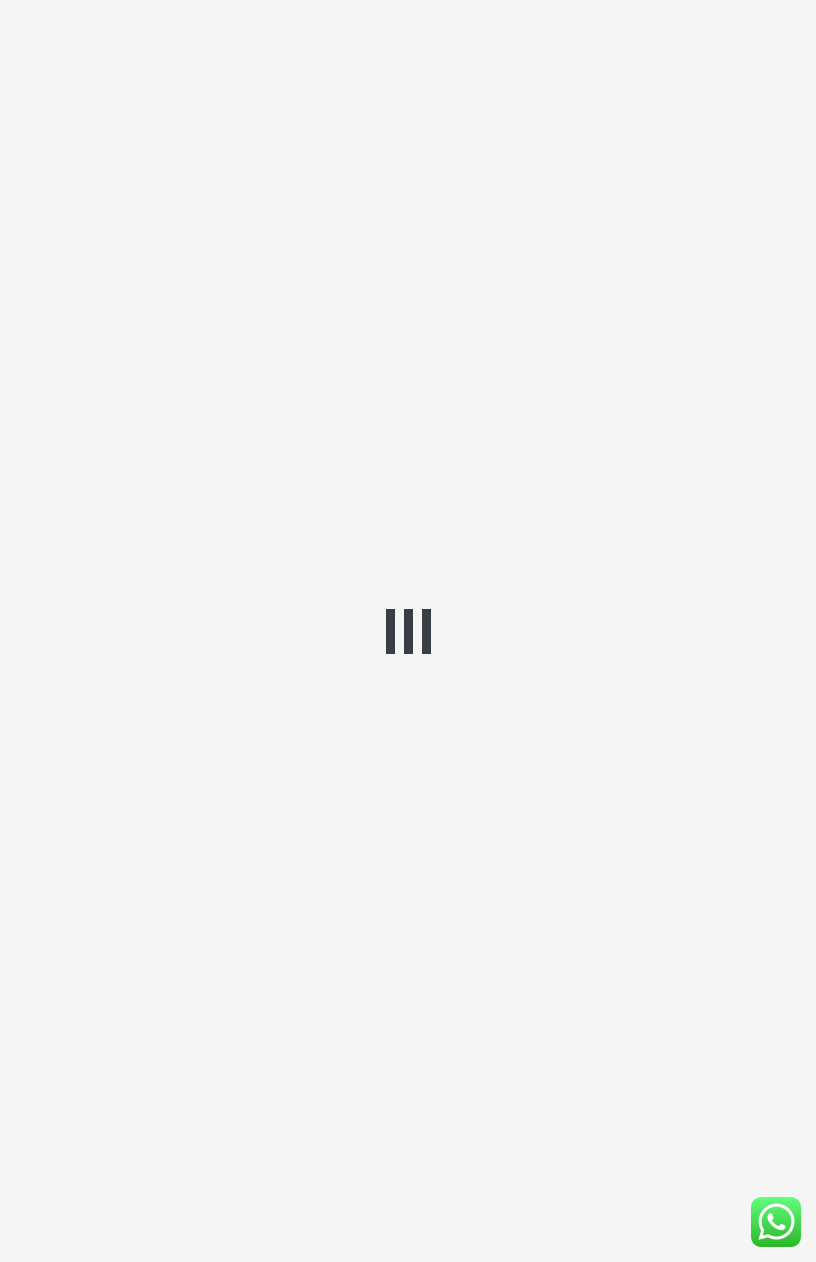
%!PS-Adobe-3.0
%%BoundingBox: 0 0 816 1262
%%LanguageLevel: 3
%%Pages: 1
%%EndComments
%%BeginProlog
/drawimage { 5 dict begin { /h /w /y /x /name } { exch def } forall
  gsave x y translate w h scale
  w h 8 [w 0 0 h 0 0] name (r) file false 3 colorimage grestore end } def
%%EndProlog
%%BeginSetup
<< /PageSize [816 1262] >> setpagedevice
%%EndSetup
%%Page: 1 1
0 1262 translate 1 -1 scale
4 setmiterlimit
0.961 setgray
0 0 816 1262 rectfill
0.224 0.243 0.275 setrgbcolor
422 609 9 45 rectfill
404 609 9 45 rectfill
386 609 9 45 rectfill
(images/1.raw) 751 1197 50 50 drawimage
showpage
%%EOF
